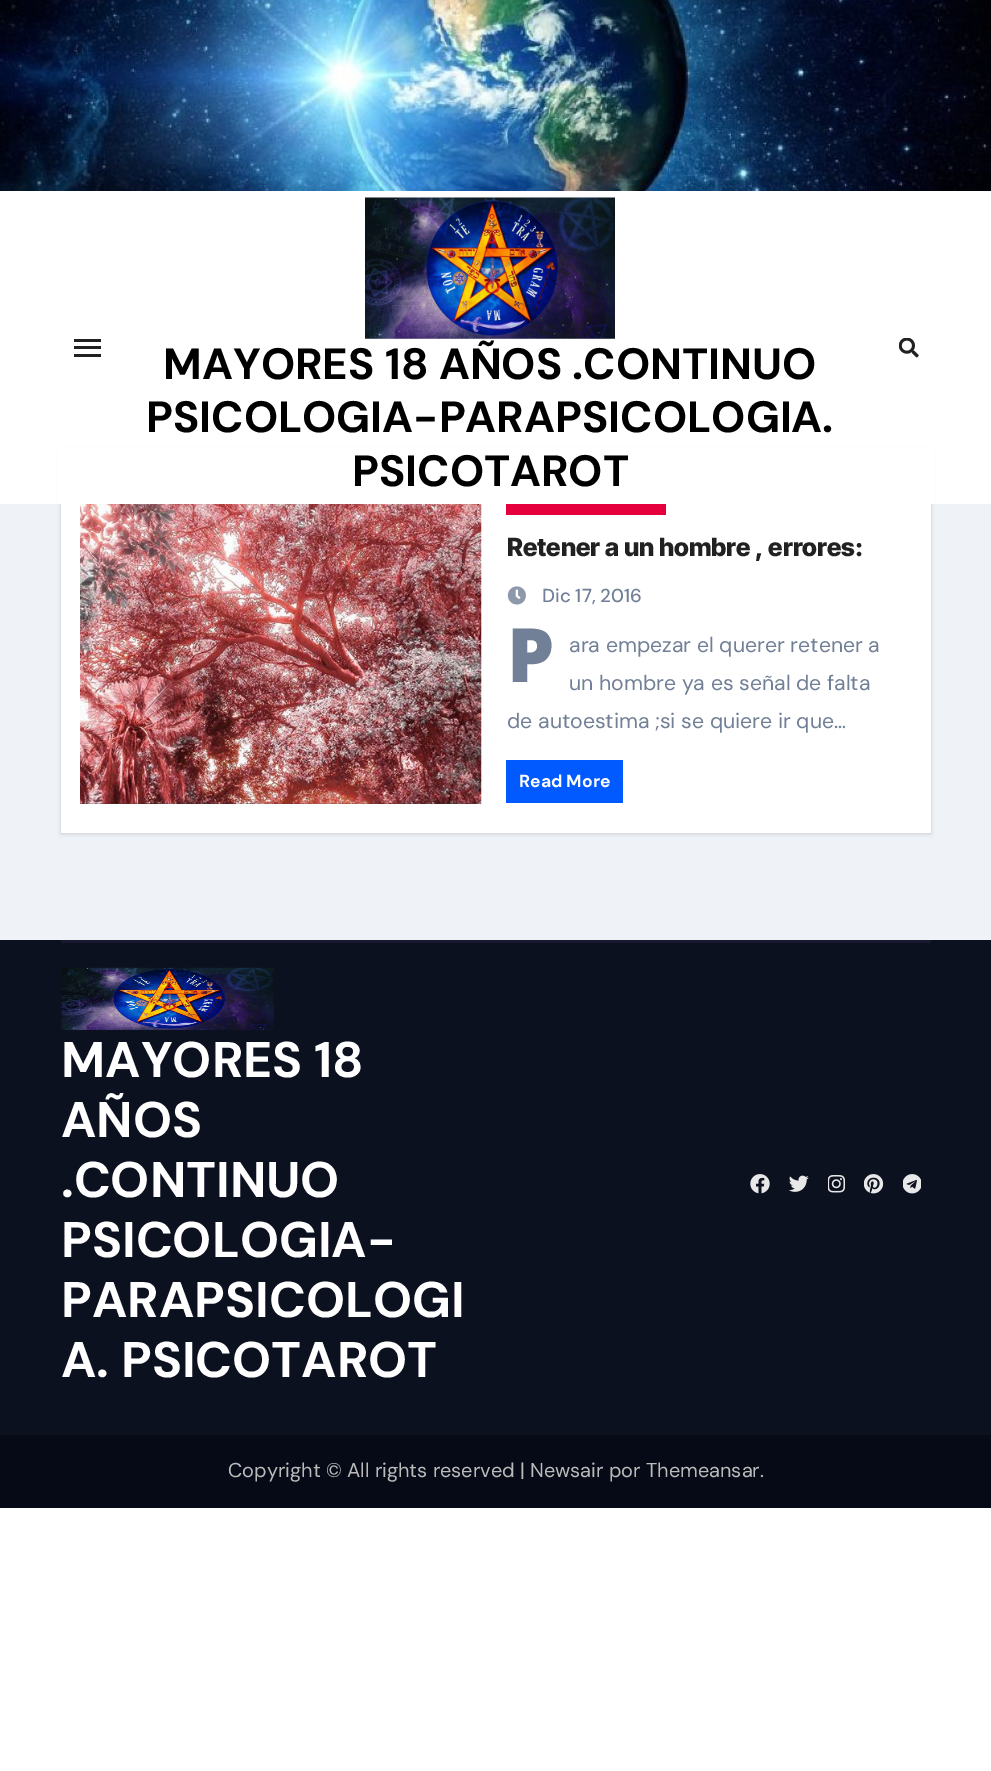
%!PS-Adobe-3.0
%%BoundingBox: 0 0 991 1771
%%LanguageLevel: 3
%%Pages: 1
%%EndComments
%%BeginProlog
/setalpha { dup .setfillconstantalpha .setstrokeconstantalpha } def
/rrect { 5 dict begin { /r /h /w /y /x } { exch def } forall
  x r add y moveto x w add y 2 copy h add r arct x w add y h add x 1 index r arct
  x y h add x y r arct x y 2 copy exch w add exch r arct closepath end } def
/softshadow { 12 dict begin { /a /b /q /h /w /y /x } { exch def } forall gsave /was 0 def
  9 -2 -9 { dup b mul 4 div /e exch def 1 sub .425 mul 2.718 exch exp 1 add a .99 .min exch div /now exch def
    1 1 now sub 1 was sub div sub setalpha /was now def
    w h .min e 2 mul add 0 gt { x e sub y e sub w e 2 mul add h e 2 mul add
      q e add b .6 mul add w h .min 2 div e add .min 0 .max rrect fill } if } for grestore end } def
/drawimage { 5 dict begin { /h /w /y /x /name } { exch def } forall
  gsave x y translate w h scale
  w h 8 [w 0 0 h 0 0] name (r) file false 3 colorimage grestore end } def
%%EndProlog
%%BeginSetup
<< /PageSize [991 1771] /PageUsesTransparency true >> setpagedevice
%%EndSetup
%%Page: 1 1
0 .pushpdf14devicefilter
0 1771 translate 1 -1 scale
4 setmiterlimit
1 setgray
0 0 991 1771 rectfill
0.937 0.949 0.969 setrgbcolor
0 504 991 436 rectfill
(images/1.raw) 0 0 991 191 drawimage
0 setgray
61 451 870 383 0 2 0.15 softshadow
1 setgray
58 448 876 56 rectfill
0.129 setgray
74 339 27 3 rectfill
74 346 27 3 rectfill
74 354 27 3 rectfill
(images/2.raw) 365 197 250 142 drawimage
(images/3.raw) 899 338 20 20 drawimage
1 setgray
61 504 870 329 rectfill
(images/4.raw) 80 504 402 300 drawimage
0.898 0 0.239 setrgbcolor
506 504 160 11 rectfill
(images/5.raw) 507 586 19 19 drawimage
0 0.353 1 setrgbcolor
506 760 117 43 rectfill
0.047 0.067 0.125 setrgbcolor
0 940 991 495 rectfill
0.102 0.094 0.18 setrgbcolor
61 940 870 3 rectfill
(images/6.raw) 61 967 213 63 drawimage
(images/7.raw) 750 1174 20 20 drawimage
(images/8.raw) 789 1175 20 17 drawimage
(images/9.raw) 828 1175 17 18 drawimage
(images/10.raw) 864 1174 20 20 drawimage
(images/11.raw) 903 1174 18 20 drawimage
0.024 0.039 0.086 setrgbcolor
0 1435 991 73 rectfill
/DMSans-Bold [43.75 0 0 -43.75 0 0] selectfont
0 setgray
163 379 moveto (MAYORES 18 AÑOS .CONTINUO) show
146 432 moveto (PSICOLOGIA-PARAPSICOLOGIA.) show
352 486 moveto (PSICOTAROT) show
/InterTight-ExtraBold [25 0 0 -25 0 0] selectfont
0.129 setgray
507 556 moveto (Retener a un hombre , errores:) show
/DMSans-Medium [18.75 0 0 -18.75 0 0] selectfont
0.443 0.502 0.588 setrgbcolor
542 602 moveto (Dic 17, 2016) show
/NotoSans-Black [75 0 0 -75 0 0] selectfont
507 682 moveto (P) show
/DMSans-Regular [21.25 0 0 -21.25 0 0] selectfont
569 652 moveto (ara empezar el querer retener a) show
569 690 moveto (un hombre ya es señal de falta) show
507 728 moveto (de autoestima ;si se quiere ir que…) show
/DMSans-Bold [17.5 0 0 -17.5 0 0] selectfont
1 setgray
519 787 moveto (Read More) show
/DMSans-Bold [50 0 0 -50 0 0] selectfont
61 1077 moveto (MAYORES 18) show
61 1137 moveto (AÑOS) show
61 1197 moveto (.CONTINUO) show
61 1257 moveto (PSICOLOGIA-) show
61 1317 moveto (PARAPSICOLOGI) show
61 1377 moveto (A. PSICOTAROT) show
/DMSans-Regular [20 0 0 -20 0 0] selectfont
0.733 setgray
228 1477 moveto (Copyright © All rights reserved | Newsair por Themeansar.) show
.poppdf14devicefilter showpage
%%EOF
